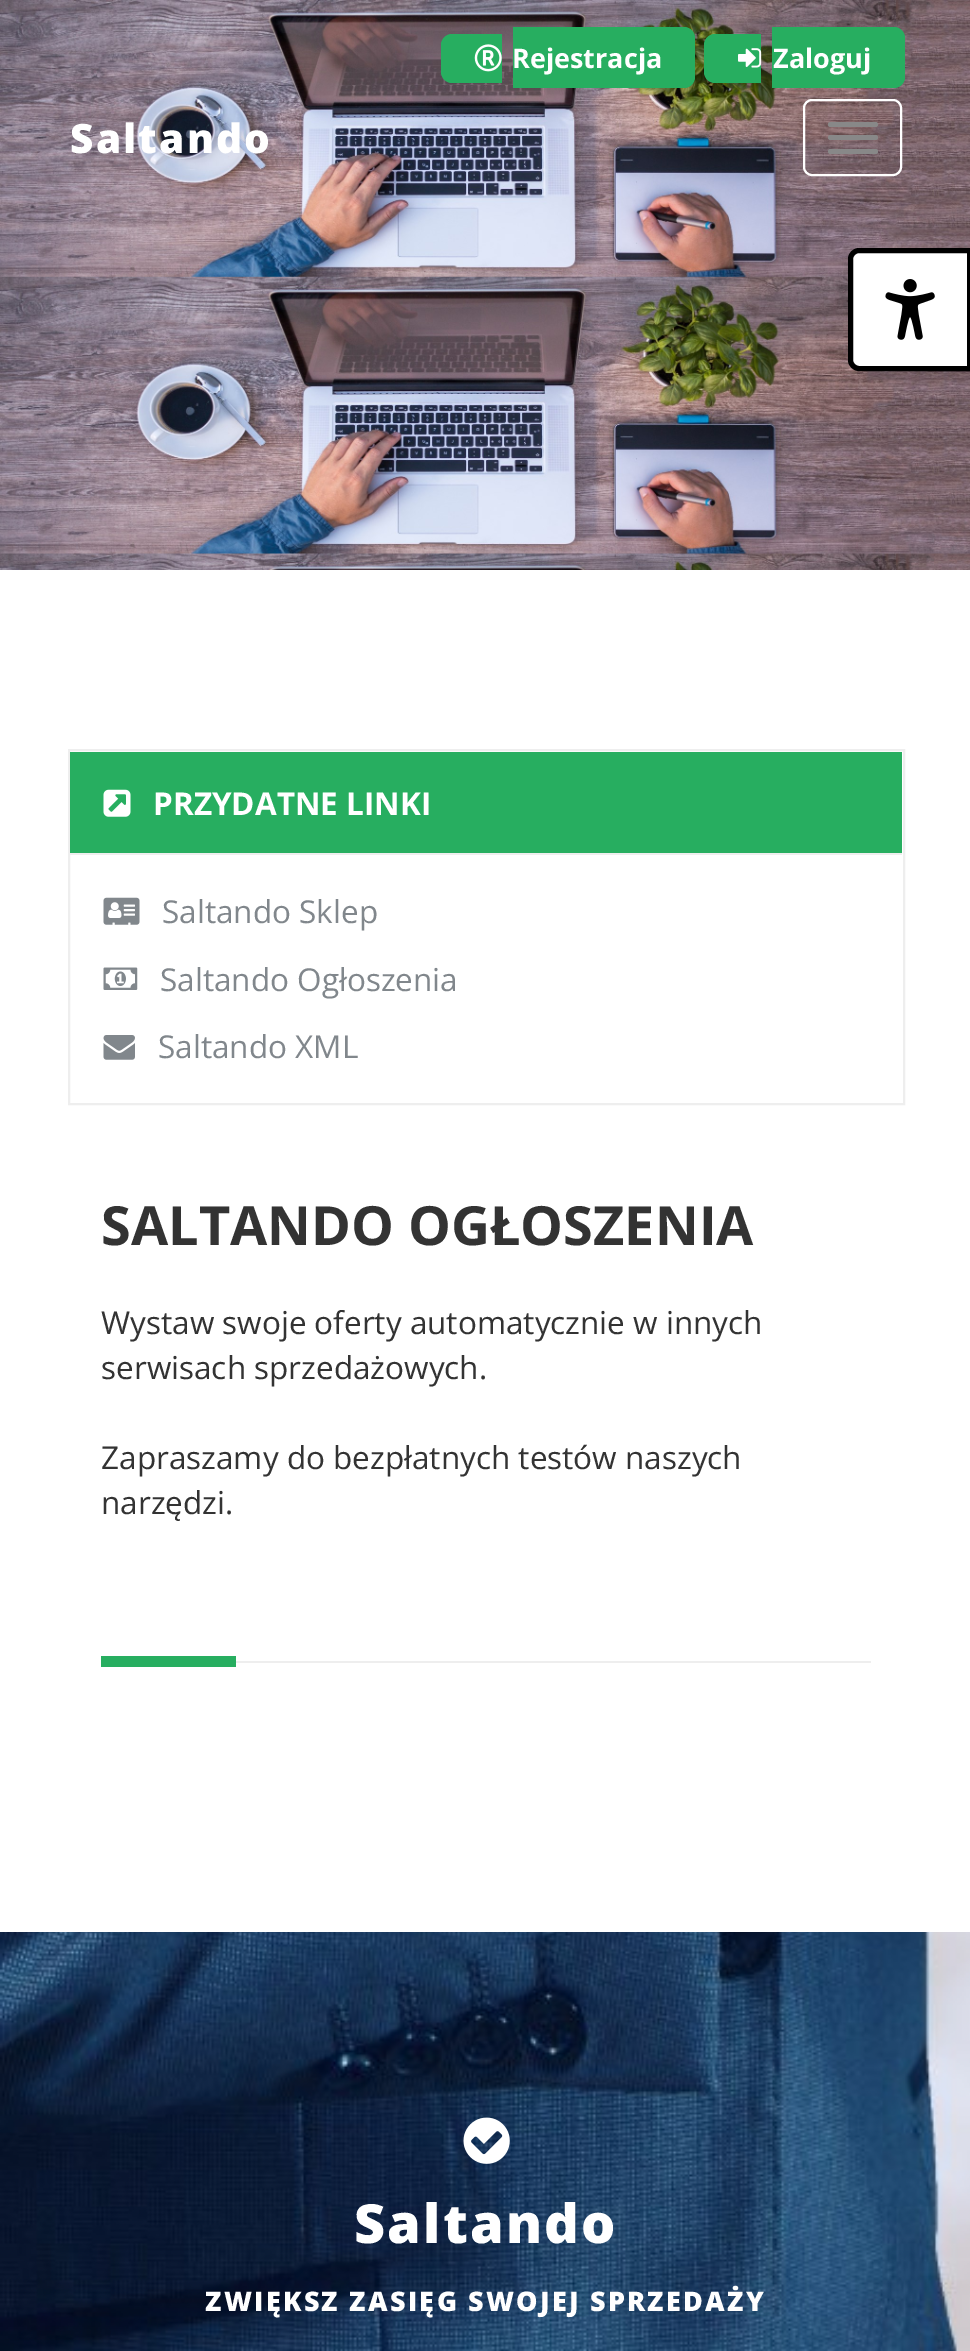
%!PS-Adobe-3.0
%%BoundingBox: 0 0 970 2351
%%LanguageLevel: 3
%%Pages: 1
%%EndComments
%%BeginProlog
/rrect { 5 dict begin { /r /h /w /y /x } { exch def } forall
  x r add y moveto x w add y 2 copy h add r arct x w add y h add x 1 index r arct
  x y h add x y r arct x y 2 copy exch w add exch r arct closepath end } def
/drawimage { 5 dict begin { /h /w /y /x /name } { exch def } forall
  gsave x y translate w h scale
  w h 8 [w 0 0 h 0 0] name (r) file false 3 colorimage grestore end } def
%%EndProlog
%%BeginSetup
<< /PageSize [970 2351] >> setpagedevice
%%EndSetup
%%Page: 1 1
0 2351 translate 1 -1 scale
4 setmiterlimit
1 setgray
0 0 970 2351 rectfill
(images/1.raw) 0 0 970 570 drawimage
0.153 0.682 0.376 setrgbcolor
newpath 452 34 moveto 502 34 lineto 502 83 lineto 452 83 lineto 446 83 441 78 441 72 curveto 441 45 lineto 441 39 446 34 452 34 curveto closepath fill
newpath 513 27 moveto 684 27 lineto 690 27 695 32 695 38 curveto 695 77 lineto 695 83 690 88 684 88 curveto 513 88 lineto closepath fill
(images/2.raw) 474 44 28 28 drawimage
newpath 715 34 moveto 761 34 lineto 761 83 lineto 715 83 lineto 709 83 704 78 704 72 curveto 704 45 lineto 704 39 709 34 715 34 curveto closepath fill
newpath 772 27 moveto 894 27 lineto 900 27 905 32 905 38 curveto 905 77 lineto 905 83 900 88 894 88 curveto 772 88 lineto closepath fill
(images/3.raw) 738 48 24 20 drawimage
1 setgray
2 setlinewidth
804 100 97 75 8 rrect stroke
0.533 setgray
828 122 50 5 2.5 rrect fill
828 135 50 5 2.5 rrect fill
828 149 50 5 2.5 rrect fill
1 setgray
newpath 859 250.5 moveto 969.5 250.5 lineto 969.5 368.5 lineto 859 368.5 lineto 854.5 368.5 850.5 364.5 850.5 360 curveto 850.5 259 lineto 850.5 254.5 854.5 250.5 859 250.5 curveto closepath gsave fill grestore
0 setgray
5 setlinewidth
stroke
(images/4.raw) 885 279 50 61 drawimage
0.933 setgray
2 setlinewidth
69 750 835 354 rectstroke
0.153 0.682 0.376 setrgbcolor
70 752 832 101 rectfill
0.933 setgray
70 853 832 2 rectfill
(images/5.raw) 103 789 28 28 drawimage
(images/6.raw) 103 897 37 28 drawimage
(images/7.raw) 103 967 35 23 drawimage
(images/8.raw) 103 1035 32 25 drawimage
236 1661 635 2 rectfill
0.153 0.682 0.376 setrgbcolor
101 1656 135 11 rectfill
(images/9.raw) 0 1932 970 419 drawimage
(images/10.raw) 463 2117 47 47 drawimage
/OpenSans-Bold [27 0 0 -27 0 0] selectfont
1 setgray
512 68 moveto (Rejestracja) show
773 68 moveto (Zaloguj) show
/OpenSans-ExtraBold [40.5 0 0 -40.5 0 0] selectfont
70 153 moveto 2.25 0 (Saltando) ashow
/OpenSans-Bold [31.5 0 0 -31.5 0 0] selectfont
153 815 moveto (PRZYDATNE LINKI) show
/OpenSans-Regular [31.5 0 0 -31.5 0 0] selectfont
0.506 0.529 0.549 setrgbcolor
162 923 moveto (Saltando Sklep) show
160 991 moveto (Saltando Ogłoszenia) show
158 1058 moveto (Saltando XML) show
/OpenSans-Bold [54 0 0 -54 0 0] selectfont
0.2 setgray
101 1245 moveto (SALTANDO OGŁOSZENIA) show
/OpenSans-Regular [31.5 0 0 -31.5 0 0] selectfont
101 1334 moveto (Wystaw swoje oferty automatycznie w innych) show
101 1379 moveto (serwisach sprzedażowych.) show
101 1469 moveto (Zapraszamy do bezpłatnych testów naszych) show
101 1514 moveto (narzędzi.) show
/OpenSans-ExtraBold [54 0 0 -54 0 0] selectfont
1 setgray
354 2243 moveto 2.25 0 (Saltando) ashow
/OpenSans-ExtraBold [27 0 0 -27 0 0] selectfont
205 2311 moveto 2.25 0 (ZWIĘKSZ ZASIĘG SWOJEJ SPRZEDAŻY) ashow
showpage
%%EOF
